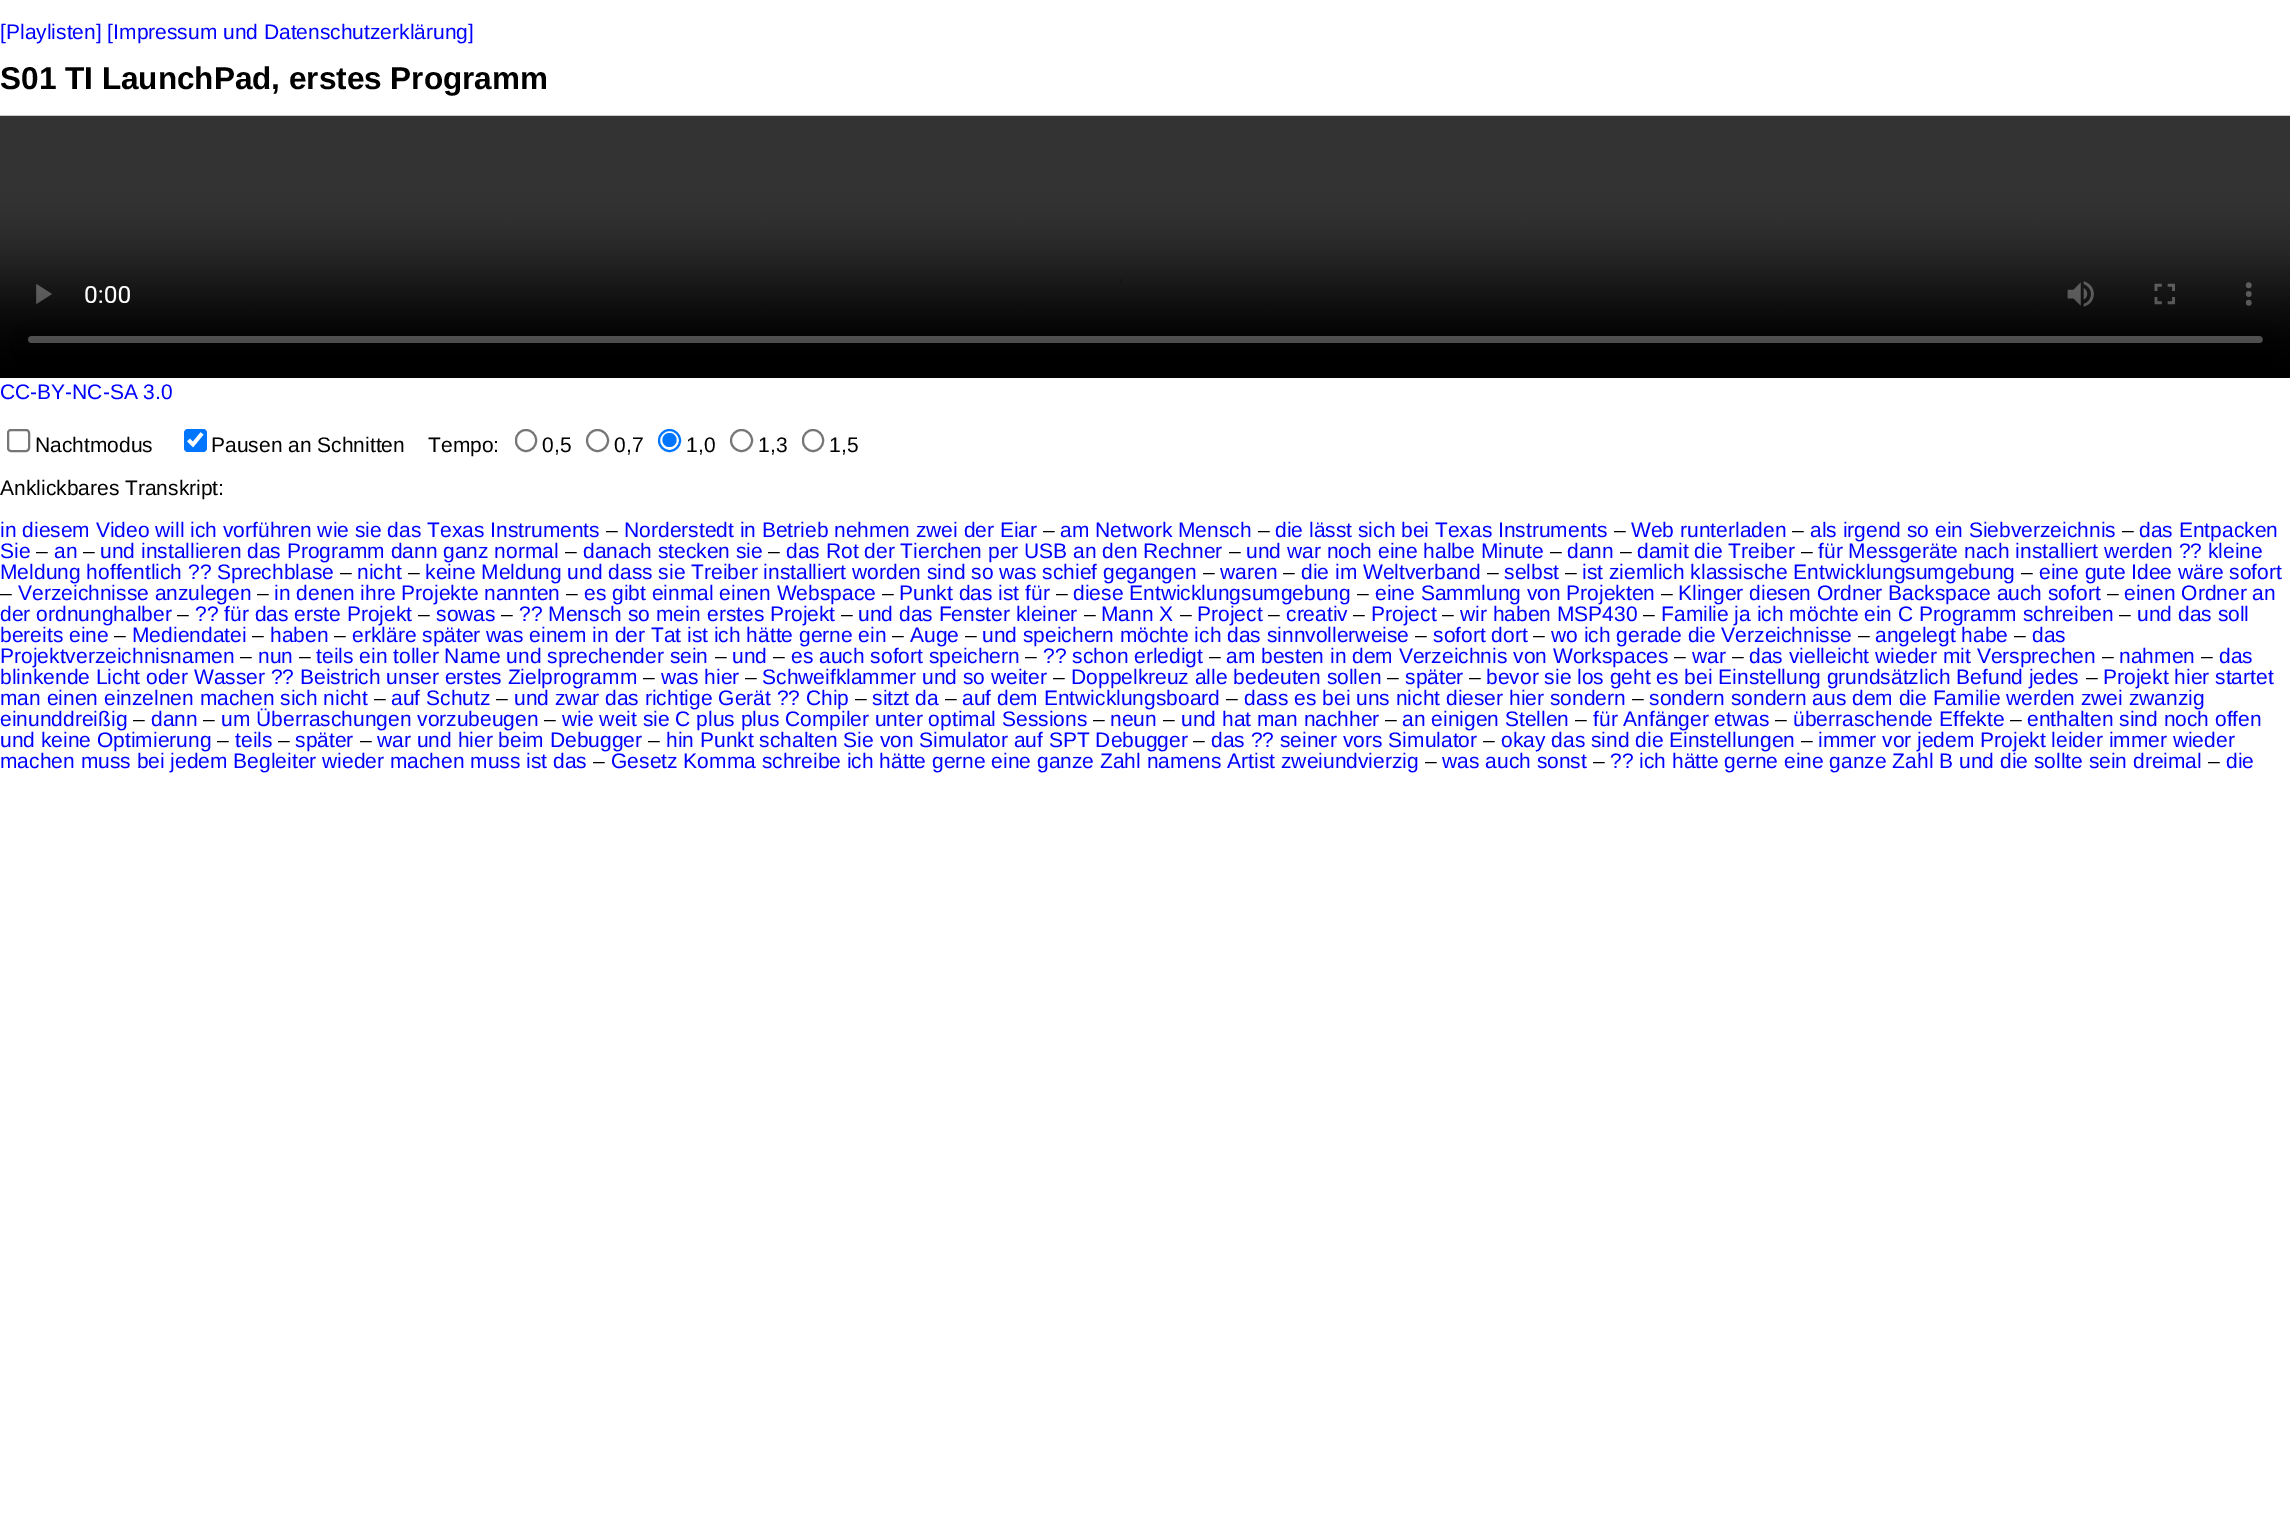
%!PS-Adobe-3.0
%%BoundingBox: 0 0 2290 1515
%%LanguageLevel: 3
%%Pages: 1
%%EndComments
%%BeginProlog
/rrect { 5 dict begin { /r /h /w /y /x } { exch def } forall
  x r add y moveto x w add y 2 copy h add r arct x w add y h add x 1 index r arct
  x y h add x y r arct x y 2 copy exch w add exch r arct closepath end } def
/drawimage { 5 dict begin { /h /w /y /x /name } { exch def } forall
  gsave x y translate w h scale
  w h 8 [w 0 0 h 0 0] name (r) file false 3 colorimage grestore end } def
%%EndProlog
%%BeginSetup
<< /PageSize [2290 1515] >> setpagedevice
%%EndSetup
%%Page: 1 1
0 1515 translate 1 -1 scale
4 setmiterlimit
1 setgray
0 0 2290 1515 rectfill
(images/1.raw) 0 115 2290 263 drawimage
0.463 setgray
2 setlinewidth
8 430 21 21 3 rrect stroke
0 0.459 1 setrgbcolor
184 429 23 23 4 rrect fill
1 setgray
3.6 setlinewidth
newpath 188.5 440 moveto 193 444.5 lineto 202 433.5 lineto stroke
0.463 setgray
2 setlinewidth
516 430 20 21 10 rrect stroke
newpath 597.5 440.5 10.5 0 360 arc closepath stroke
0 0.459 1 setrgbcolor
newpath 669.5 440.5 10.5 0 360 arc closepath stroke
newpath 669.5 440 7 0 360 arc closepath fill
0.463 setgray
newpath 741.5 440.5 10.5 0 360 arc closepath stroke
803 430 20 21 10 rrect stroke
/LiberationSans-Regular [21 0 0 -21 0 0] selectfont
0 0 1 setrgbcolor
0 39 moveto ([Playlisten] [Impressum und Datenschutzerklärung]) show
/LiberationSans-Bold [31.5 0 0 -31.5 0 0] selectfont
0 setgray
0 89 moveto (S01 TI LaunchPad, erstes Programm) show
/LiberationSans-Regular [21 0 0 -21 0 0] selectfont
0 0 1 setrgbcolor
0 399 moveto (CC-BY-NC-SA 3.0) show
0 setgray
35 452 moveto (Nachtmodus) show
211 452 moveto (Pausen an Schnitten) show
428 452 moveto (Tempo:) show
542 452 moveto (0,5) show
614 452 moveto (0,7) show
686 452 moveto (1,0) show
758 452 moveto (1,3) show
829 452 moveto (1,5) show
0 495 moveto (Anklickbares Transkript:) show
0 0 1 setrgbcolor
0 537 moveto (in diesem Video will ich vorführen wie sie das Texas Instruments) show
0 setgray
606 537 moveto (–) show
0 0 1 setrgbcolor
624 537 moveto (Norderstedt in Betrieb nehmen zwei der Eiar) show
0 setgray
1043 537 moveto (–) show
0 0 1 setrgbcolor
1060 537 moveto (am Network Mensch) show
0 setgray
1258 537 moveto (–) show
0 0 1 setrgbcolor
1275 537 moveto (die lässt sich bei Texas Instruments) show
0 setgray
1614 537 moveto (–) show
0 0 1 setrgbcolor
1631 537 moveto (Web runterladen) show
0 setgray
1792 537 moveto (–) show
0 0 1 setrgbcolor
1810 537 moveto (als irgend so ein Siebverzeichnis) show
0 setgray
2122 537 moveto (–) show
0 0 1 setrgbcolor
2139 537 moveto (das Entpacken) show
0 558 moveto (Sie) show
0 setgray
36 558 moveto (–) show
0 0 1 setrgbcolor
54 558 moveto (an) show
0 setgray
83 558 moveto (–) show
0 0 1 setrgbcolor
100 558 moveto (und installieren das Programm dann ganz normal) show
0 setgray
565 558 moveto (–) show
0 0 1 setrgbcolor
583 558 moveto (danach stecken sie) show
0 setgray
768 558 moveto (–) show
0 0 1 setrgbcolor
786 558 moveto (das Rot der Tierchen per USB an den Rechner) show
0 setgray
1229 558 moveto (–) show
0 0 1 setrgbcolor
1246 558 moveto (und war noch eine halbe Minute) show
0 setgray
1550 558 moveto (–) show
0 0 1 setrgbcolor
1567 558 moveto (dann) show
0 setgray
1620 558 moveto (–) show
0 0 1 setrgbcolor
1637 558 moveto (damit die Treiber) show
0 setgray
1801 558 moveto (–) show
0 0 1 setrgbcolor
1818 558 moveto (für Messgeräte nach installiert werden ?? kleine) show
0 579 moveto (Meldung hoffentlich ?? Sprechblase) show
0 setgray
340 579 moveto (–) show
0 0 1 setrgbcolor
357 579 moveto (nicht) show
0 setgray
408 579 moveto (–) show
0 0 1 setrgbcolor
425 579 moveto (keine Meldung und dass sie Treiber installiert worden sind so was schief gegangen) show
0 setgray
1203 579 moveto (–) show
0 0 1 setrgbcolor
1220 579 moveto (waren) show
0 setgray
1283 579 moveto (–) show
0 0 1 setrgbcolor
1301 579 moveto (die im Weltverband) show
0 setgray
1487 579 moveto (–) show
0 0 1 setrgbcolor
1504 579 moveto (selbst) show
0 setgray
1565 579 moveto (–) show
0 0 1 setrgbcolor
1582 579 moveto (ist ziemlich klassische Entwicklungsumgebung) show
0 setgray
2021 579 moveto (–) show
0 0 1 setrgbcolor
2039 579 moveto (eine gute Idee wäre sofort) show
0 setgray
0 600 moveto (–) show
0 0 1 setrgbcolor
18 600 moveto (Verzeichnisse anzulegen) show
0 setgray
257 600 moveto (–) show
0 0 1 setrgbcolor
274 600 moveto (in denen ihre Projekte nannten) show
0 setgray
566 600 moveto (–) show
0 0 1 setrgbcolor
584 600 moveto (es gibt einmal einen Webspace) show
0 setgray
882 600 moveto (–) show
0 0 1 setrgbcolor
899 600 moveto (Punkt das ist für) show
0 setgray
1056 600 moveto (–) show
0 0 1 setrgbcolor
1073 600 moveto (diese Entwicklungsumgebung) show
0 setgray
1357 600 moveto (–) show
0 0 1 setrgbcolor
1375 600 moveto (eine Sammlung von Projekten) show
0 setgray
1661 600 moveto (–) show
0 0 1 setrgbcolor
1678 600 moveto (Klinger diesen Ordner Backspace auch sofort) show
0 setgray
2107 600 moveto (–) show
0 0 1 setrgbcolor
2124 600 moveto (einen Ordner an) show
0 621 moveto (der ordnunghalber) show
0 setgray
177 621 moveto (–) show
0 0 1 setrgbcolor
195 621 moveto (?? für das erste Projekt) show
0 setgray
418 621 moveto (–) show
0 0 1 setrgbcolor
436 621 moveto (sowas) show
0 setgray
501 621 moveto (–) show
0 0 1 setrgbcolor
519 621 moveto (?? Mensch so mein erstes Projekt) show
0 setgray
841 621 moveto (–) show
0 0 1 setrgbcolor
858 621 moveto (und das Fenster kleiner) show
0 setgray
1084 621 moveto (–) show
0 0 1 setrgbcolor
1101 621 moveto (Mann X) show
0 setgray
1180 621 moveto (–) show
0 0 1 setrgbcolor
1197 621 moveto (Project) show
0 setgray
1268 621 moveto (–) show
0 0 1 setrgbcolor
1286 621 moveto (creativ) show
0 setgray
1353 621 moveto (–) show
0 0 1 setrgbcolor
1371 621 moveto (Project) show
0 setgray
1442 621 moveto (–) show
0 0 1 setrgbcolor
1460 621 moveto (wir haben MSP430) show
0 setgray
1643 621 moveto (–) show
0 0 1 setrgbcolor
1661 621 moveto (Familie ja ich möchte ein C Programm schreiben) show
0 setgray
2119 621 moveto (–) show
0 0 1 setrgbcolor
2137 621 moveto (und das soll) show
0 642 moveto (bereits eine) show
0 setgray
114 642 moveto (–) show
0 0 1 setrgbcolor
132 642 moveto (Mediendatei) show
0 setgray
252 642 moveto (–) show
0 0 1 setrgbcolor
270 642 moveto (haben) show
0 setgray
334 642 moveto (–) show
0 0 1 setrgbcolor
352 642 moveto (erkläre später was einem in der Tat ist ich hätte gerne ein) show
0 setgray
892 642 moveto (–) show
0 0 1 setrgbcolor
910 642 moveto (Auge) show
0 setgray
965 642 moveto (–) show
0 0 1 setrgbcolor
982 642 moveto (und speichern möchte ich das sinnvollerweise) show
0 setgray
1415 642 moveto (–) show
0 0 1 setrgbcolor
1433 642 moveto (sofort dort) show
0 setgray
1533 642 moveto (–) show
0 0 1 setrgbcolor
1551 642 moveto (wo ich gerade die Verzeichnisse) show
0 setgray
1858 642 moveto (–) show
0 0 1 setrgbcolor
1875 642 moveto (angelegt habe) show
0 setgray
2014 642 moveto (–) show
0 0 1 setrgbcolor
2032 642 moveto (das) show
0 663 moveto (Projektverzeichnisnamen) show
0 setgray
240 663 moveto (–) show
0 0 1 setrgbcolor
258 663 moveto (nun) show
0 setgray
299 663 moveto (–) show
0 0 1 setrgbcolor
316 663 moveto (teils ein toller Name und sprechender sein) show
0 setgray
715 663 moveto (–) show
0 0 1 setrgbcolor
732 663 moveto (und) show
0 setgray
773 663 moveto (–) show
0 0 1 setrgbcolor
791 663 moveto (es auch sofort speichern) show
0 setgray
1025 663 moveto (–) show
0 0 1 setrgbcolor
1043 663 moveto (?? schon erledigt) show
0 setgray
1209 663 moveto (–) show
0 0 1 setrgbcolor
1226 663 moveto (am besten in dem Verzeichnis von Workspaces) show
0 setgray
1674 663 moveto (–) show
0 0 1 setrgbcolor
1692 663 moveto (war) show
0 setgray
1732 663 moveto (–) show
0 0 1 setrgbcolor
1749 663 moveto (das vielleicht wieder mit Versprechen) show
0 setgray
2102 663 moveto (–) show
0 0 1 setrgbcolor
2119 663 moveto (nahmen) show
0 setgray
2201 663 moveto (–) show
0 0 1 setrgbcolor
2219 663 moveto (das) show
0 684 moveto (blinkende Licht oder Wasser ?? Beistrich unser erstes Zielprogramm) show
0 setgray
643 684 moveto (–) show
0 0 1 setrgbcolor
661 684 moveto (was hier) show
0 setgray
745 684 moveto (–) show
0 0 1 setrgbcolor
762 684 moveto (Schweifklammer und so weiter) show
0 setgray
1053 684 moveto (–) show
0 0 1 setrgbcolor
1071 684 moveto (Doppelkreuz alle bedeuten sollen) show
0 setgray
1387 684 moveto (–) show
0 0 1 setrgbcolor
1405 684 moveto (später) show
0 setgray
1469 684 moveto (–) show
0 0 1 setrgbcolor
1486 684 moveto (bevor sie los geht es bei Einstellung grundsätzlich Befund jedes) show
0 setgray
2086 684 moveto (–) show
0 0 1 setrgbcolor
2103 684 moveto (Projekt hier startet) show
0 705 moveto (man einen einzelnen machen sich nicht) show
0 setgray
374 705 moveto (–) show
0 0 1 setrgbcolor
391 705 moveto (auf Schutz) show
0 setgray
496 705 moveto (–) show
0 0 1 setrgbcolor
514 705 moveto (und zwar das richtige Gerät ?? Chip) show
0 setgray
855 705 moveto (–) show
0 0 1 setrgbcolor
872 705 moveto (sitzt da) show
0 setgray
945 705 moveto (–) show
0 0 1 setrgbcolor
962 705 moveto (auf dem Entwicklungsboard) show
0 setgray
1226 705 moveto (–) show
0 0 1 setrgbcolor
1244 705 moveto (dass es bei uns nicht dieser hier sondern) show
0 setgray
1632 705 moveto (–) show
0 0 1 setrgbcolor
1649 705 moveto (sondern sondern aus dem die Familie werden zwei zwanzig) show
0 726 moveto (einunddreißig) show
0 setgray
133 726 moveto (–) show
0 0 1 setrgbcolor
151 726 moveto (dann) show
0 setgray
203 726 moveto (–) show
0 0 1 setrgbcolor
221 726 moveto (um Überraschungen vorzubeugen) show
0 setgray
544 726 moveto (–) show
0 0 1 setrgbcolor
562 726 moveto (wie weit sie C plus plus Compiler unter optimal Sessions) show
0 setgray
1093 726 moveto (–) show
0 0 1 setrgbcolor
1110 726 moveto (neun) show
0 setgray
1163 726 moveto (–) show
0 0 1 setrgbcolor
1181 726 moveto (und hat man nachher) show
0 setgray
1385 726 moveto (–) show
0 0 1 setrgbcolor
1402 726 moveto (an einigen Stellen) show
0 setgray
1575 726 moveto (–) show
0 0 1 setrgbcolor
1593 726 moveto (für Anfänger etwas) show
0 setgray
1775 726 moveto (–) show
0 0 1 setrgbcolor
1793 726 moveto (überraschende Effekte) show
0 setgray
2010 726 moveto (–) show
0 0 1 setrgbcolor
2027 726 moveto (enthalten sind noch offen) show
0 747 moveto (und keine Optimierung) show
0 setgray
217 747 moveto (–) show
0 0 1 setrgbcolor
235 747 moveto (teils) show
0 setgray
278 747 moveto (–) show
0 0 1 setrgbcolor
295 747 moveto (später) show
0 setgray
360 747 moveto (–) show
0 0 1 setrgbcolor
377 747 moveto (war und hier beim Debugger) show
0 setgray
648 747 moveto (–) show
0 0 1 setrgbcolor
666 747 moveto (hin Punkt schalten Sie von Simulator auf SPT Debugger) show
0 setgray
1193 747 moveto (–) show
0 0 1 setrgbcolor
1211 747 moveto (das ?? seiner vors Simulator) show
0 setgray
1483 747 moveto (–) show
0 0 1 setrgbcolor
1501 747 moveto (okay das sind die Einstellungen) show
0 setgray
1801 747 moveto (–) show
0 0 1 setrgbcolor
1818 747 moveto (immer vor jedem Projekt leider immer wieder) show
0 768 moveto (machen muss bei jedem Begleiter wieder machen muss ist das) show
0 setgray
593 768 moveto (–) show
0 0 1 setrgbcolor
611 768 moveto (Gesetz Komma schreibe ich hätte gerne eine ganze Zahl namens Artist zweiundvierzig) show
0 setgray
1425 768 moveto (–) show
0 0 1 setrgbcolor
1442 768 moveto (was auch sonst) show
0 setgray
1593 768 moveto (–) show
0 0 1 setrgbcolor
1610 768 moveto (?? ich hätte gerne eine ganze Zahl B und die sollte sein dreimal) show
0 setgray
2208 768 moveto (–) show
0 0 1 setrgbcolor
2226 768 moveto (die) show
showpage
%%EOF
